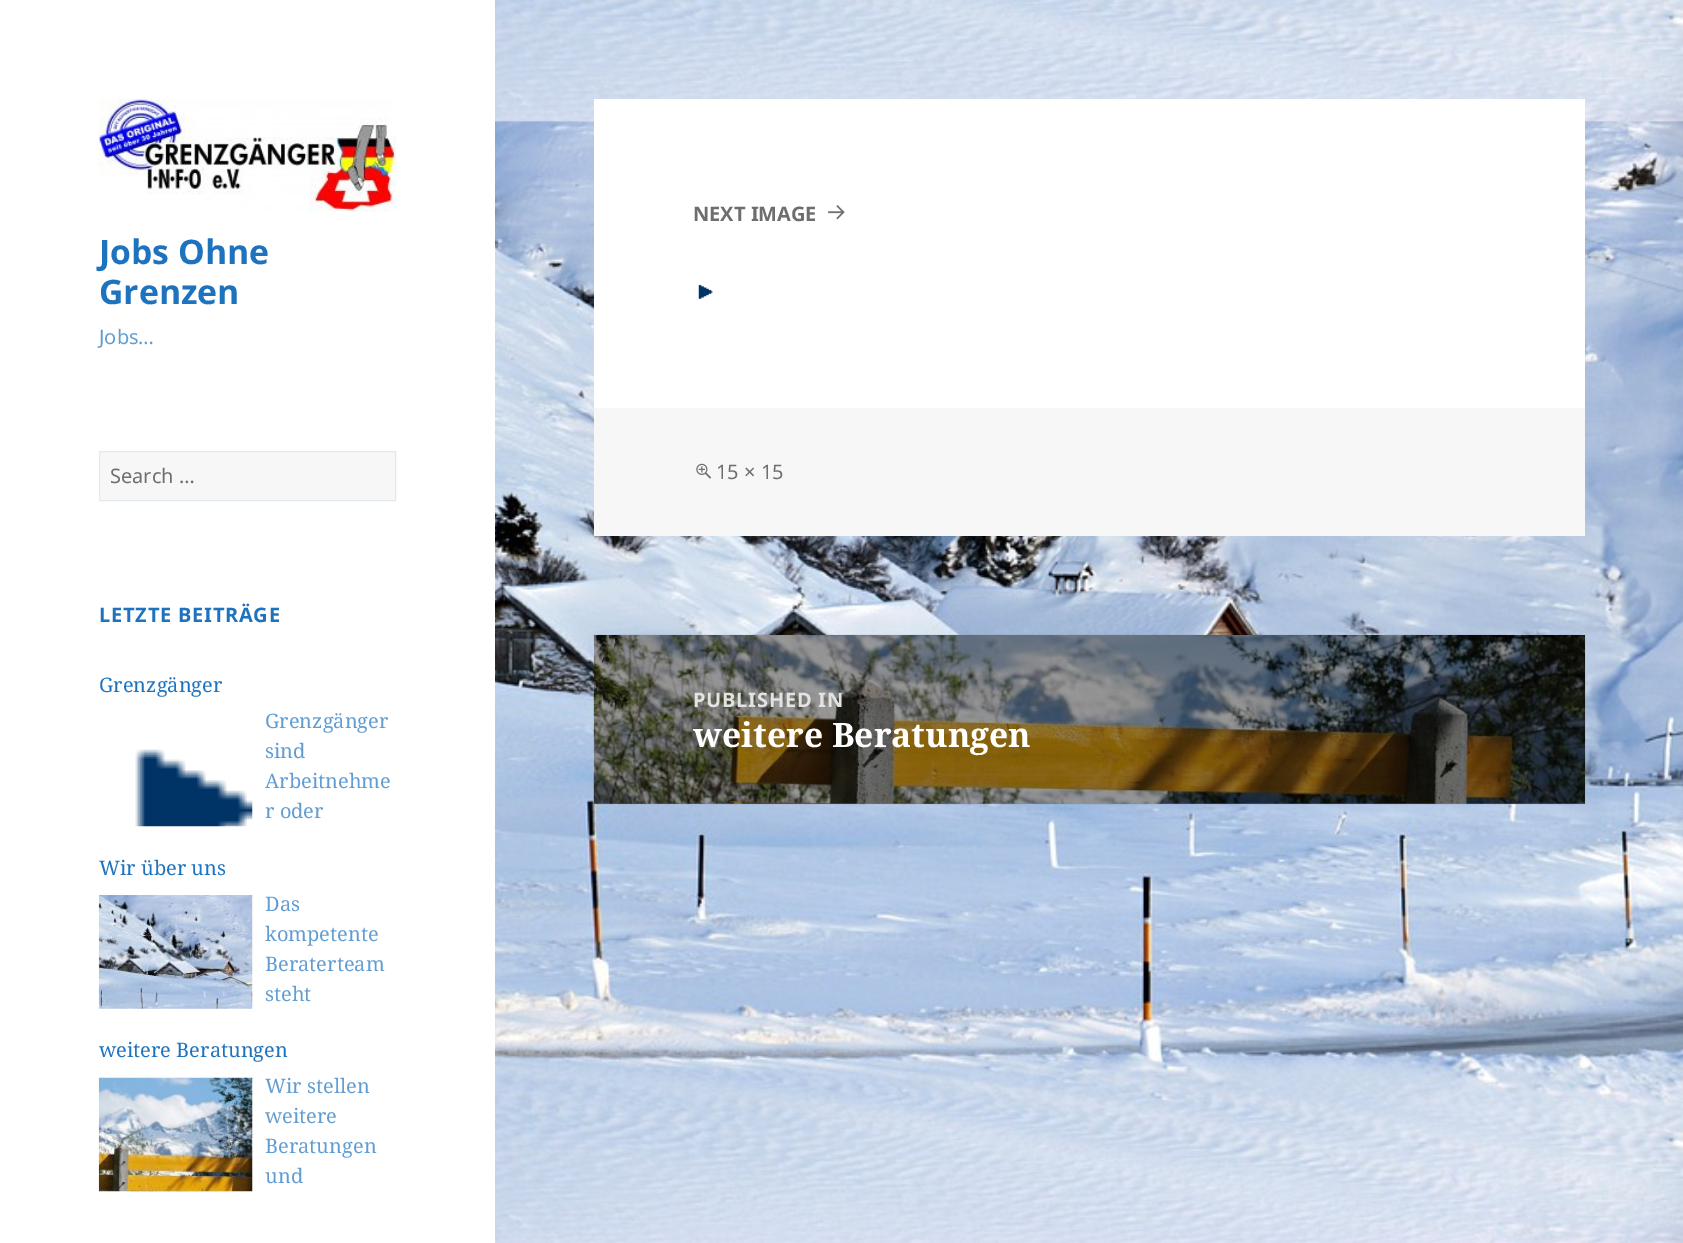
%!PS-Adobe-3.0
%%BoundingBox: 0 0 1683 1243
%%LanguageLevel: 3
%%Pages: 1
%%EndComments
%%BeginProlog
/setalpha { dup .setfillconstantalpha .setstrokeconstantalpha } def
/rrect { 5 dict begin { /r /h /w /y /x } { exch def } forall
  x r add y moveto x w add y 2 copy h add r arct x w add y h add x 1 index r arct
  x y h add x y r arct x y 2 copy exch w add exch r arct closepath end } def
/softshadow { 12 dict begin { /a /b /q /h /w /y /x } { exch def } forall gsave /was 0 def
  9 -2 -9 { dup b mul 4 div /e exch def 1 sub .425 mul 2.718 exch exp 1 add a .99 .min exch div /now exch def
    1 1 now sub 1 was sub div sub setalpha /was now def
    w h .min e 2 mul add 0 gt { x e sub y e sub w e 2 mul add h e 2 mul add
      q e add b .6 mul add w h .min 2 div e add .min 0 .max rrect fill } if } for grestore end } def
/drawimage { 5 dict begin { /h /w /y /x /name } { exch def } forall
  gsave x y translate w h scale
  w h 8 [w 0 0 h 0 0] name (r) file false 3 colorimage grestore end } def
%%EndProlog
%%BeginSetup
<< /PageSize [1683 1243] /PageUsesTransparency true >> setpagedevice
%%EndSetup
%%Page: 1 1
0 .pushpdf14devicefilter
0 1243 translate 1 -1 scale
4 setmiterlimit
1 setgray
0 0 1683 1243 rectfill
(images/1.raw) 495 0 1188 1243 drawimage
(images/2.raw) 98 98 299 114 drawimage
0.969 setgray
newpath 99.5 451.5 moveto 395.5 451.5 lineto 395.5 500.5 lineto 99.5 500.5 lineto closepath gsave fill grestore
0.882 0.918 0.945 setrgbcolor
stroke
(images/3.raw) 135 749 118 78 drawimage
(images/4.raw) 98 895 155 114 drawimage
(images/5.raw) 98 1077 155 115 drawimage
1 setgray
594 99 991 309 rectfill
(images/6.raw) 828 205 17 15 drawimage
(images/7.raw) 698 284 15 15 drawimage
0.969 setgray
594 408 991 128 rectfill
(images/8.raw) 696 463 16 16 drawimage
0 setgray
594 635 991 169 0 0.5 0.15 softshadow
(images/9.raw) 593 635 992 169 drawimage
0.4 setalpha
594 635 991 169 rectfill
/NotoSans-Bold [33.75 0 0 -33.75 0 0] selectfont
1 setalpha
0.118 0.451 0.745 setrgbcolor
99 264 moveto (Jobs Ohne) show
99 304 moveto (Grenzen) show
/NotoSans-Regular [20 0 0 -20 0 0] selectfont
0.384 0.616 0.824 setrgbcolor
99 344 moveto (Jobs…) show
0.431 setgray
110 483 moveto (Search …) show
/NotoSans-Bold [20 0 0 -20 0 0] selectfont
0.118 0.451 0.745 setrgbcolor
99 622 moveto 0.75 0 (LETZTE BEITRÄGE) ashow
/NotoSerif-Regular [20 0 0 -20 0 0] selectfont
99 692 moveto (Grenzgänger) show
0.384 0.616 0.824 setrgbcolor
265 728 moveto (Grenzgänger) show
265 758 moveto (sind) show
265 788 moveto (Arbeitnehme) show
265 818 moveto (r oder) show
0.118 0.451 0.745 setrgbcolor
99 875 moveto (Wir über uns) show
0.384 0.616 0.824 setrgbcolor
265 911 moveto (Das) show
265 941 moveto (kompetente) show
265 971 moveto (Beraterteam) show
265 1001 moveto (steht) show
0.118 0.451 0.745 setrgbcolor
99 1057 moveto (weitere Beratungen) show
0.384 0.616 0.824 setrgbcolor
265 1093 moveto (Wir stellen) show
265 1123 moveto (weitere) show
265 1153 moveto (Beratungen) show
265 1183 moveto (und) show
/NotoSans-Bold [20 0 0 -20 0 0] selectfont
0.431 setgray
693 221 moveto (NEXT IMAGE) show
/NotoSans-Regular [20 0 0 -20 0 0] selectfont
716 479 moveto (15 × 15) show
/NotoSans-Bold [20 0 0 -20 0 0] selectfont
0.89 0.89 0.886 setrgbcolor
693 707 moveto 0.75 0 (PUBLISHED IN) ashow
/NotoSerif-Bold [33.75 0 0 -33.75 0 0] selectfont
1 setgray
693 747 moveto (weitere Beratungen) show
.poppdf14devicefilter showpage
%%EOF
